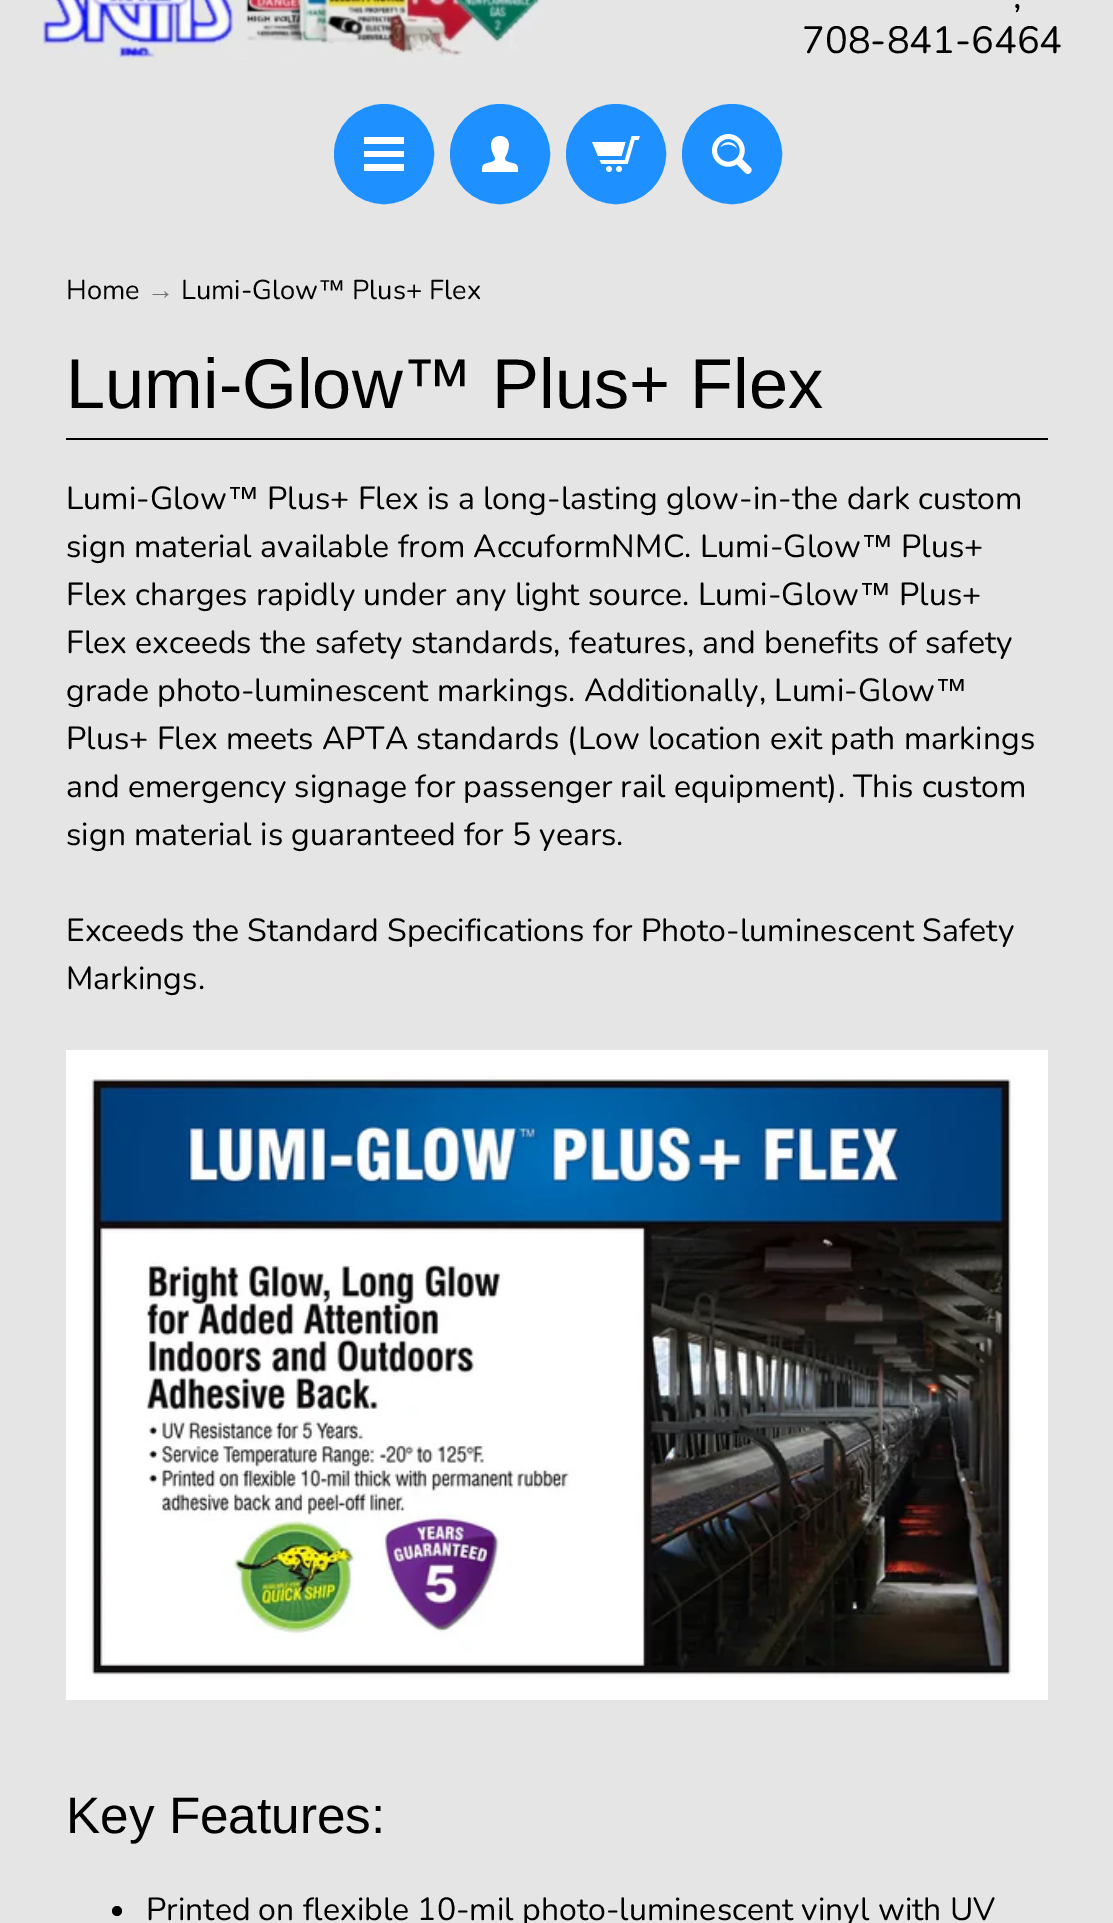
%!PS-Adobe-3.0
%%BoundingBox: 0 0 1113 1923
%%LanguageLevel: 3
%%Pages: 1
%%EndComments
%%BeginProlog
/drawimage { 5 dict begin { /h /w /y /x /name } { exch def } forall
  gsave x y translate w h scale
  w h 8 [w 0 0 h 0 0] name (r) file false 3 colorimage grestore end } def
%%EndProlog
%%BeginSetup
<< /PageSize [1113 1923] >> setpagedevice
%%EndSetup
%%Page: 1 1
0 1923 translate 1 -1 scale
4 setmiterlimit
0.898 setgray
0 0 1113 1923 rectfill
(images/1.raw) 40 0 500 60 drawimage
0.118 0.565 1 setrgbcolor
newpath 384 154 47 0 360 arc closepath gsave fill grestore
6 setlinewidth
stroke
1 setgray
newpath 404 144 moveto 364 144 lineto 364 137 lineto 404 137 lineto closepath 404 151 moveto 364 151 lineto 364 157 lineto 404 157 lineto closepath 404 164 moveto 364 164 lineto 364 171 lineto 404 171 lineto closepath fill
0.118 0.565 1 setrgbcolor
newpath 500 154 47 0 360 arc closepath gsave fill grestore
stroke
(images/2.raw) 482 136 36 36 drawimage
newpath 616 154 47 0 360 arc closepath gsave fill grestore
stroke
(images/3.raw) 592 136 48 36 drawimage
newpath 732 154 47 0 360 arc closepath gsave fill grestore
stroke
(images/4.raw) 712 134 40 40 drawimage
0 setgray
66 438 982 2 rectfill
(images/5.raw) 66 1050 982 650 drawimage
newpath 117 1911 5 0 360 arc closepath fill
/Nunito-Regular [38 0 0 -38 0 0] selectfont
1013 8 moveto (,) show
802 53 moveto (708-841-6464) show
/Nunito-Regular [27.25 0 0 -27.25 0 0] selectfont
66 299 moveto (Home) show
181 299 moveto (Lumi-Glow) show
/LiberationSans-Regular [27.25 0 0 -27.25 0 0] selectfont
318 299 moveto (™) show
/Nunito-Regular [27.25 0 0 -27.25 0 0] selectfont
352 299 moveto (Plus+ Flex) show
/LiberationSans-Regular [27.25 0 0 -27.25 0 0] selectfont
0.451 setgray
147 299 moveto (→) show
/LiberationSans-Regular [70.4 0 0 -70.4 0 0] selectfont
0 setgray
66 408 moveto (Lumi-Glow™ Plus+ Flex) show
/Nunito-Regular [32 0 0 -32 0 0] selectfont
66 509 moveto (Lumi-Glow) show
/LiberationSans-Regular [32 0 0 -32 0 0] selectfont
227 509 moveto (™) show
/Nunito-Regular [32 0 0 -32 0 0] selectfont
267 509 moveto (Plus+ Flex is a long-lasting glow-in-the dark custom) show
66 557 moveto (sign material available from AccuformNMC. Lumi-Glow) show
/LiberationSans-Regular [32 0 0 -32 0 0] selectfont
861 557 moveto (™) show
/Nunito-Regular [32 0 0 -32 0 0] selectfont
901 557 moveto (Plus+) show
66 605 moveto (Flex charges rapidly under any light source. Lumi-Glow) show
/LiberationSans-Regular [32 0 0 -32 0 0] selectfont
859 605 moveto (™) show
/Nunito-Regular [32 0 0 -32 0 0] selectfont
899 605 moveto (Plus+) show
66 653 moveto (Flex exceeds the safety standards, features, and benefits of safety) show
66 701 moveto (grade photo-luminescent markings. Additionally, Lumi-Glow) show
/LiberationSans-Regular [32 0 0 -32 0 0] selectfont
935 701 moveto (™) show
/Nunito-Regular [32 0 0 -32 0 0] selectfont
66 749 moveto (Plus+ Flex meets APTA standards \(Low location exit path markings) show
66 797 moveto (and emergency signage for passenger rail equipment\). This custom) show
66 845 moveto (sign material is guaranteed for 5 years.) show
66 941 moveto (Exceeds the Standard Specifications for Photo-luminescent Safety) show
66 989 moveto (Markings.) show
/LiberationSans-Regular [51.25 0 0 -51.25 0 0] selectfont
66 1833 moveto (Key Features:) show
/Nunito-Regular [32 0 0 -32 0 0] selectfont
146 1920 moveto (Printed on flexible 10-mil photo-luminescent vinyl with UV) show
showpage
%%EOF
